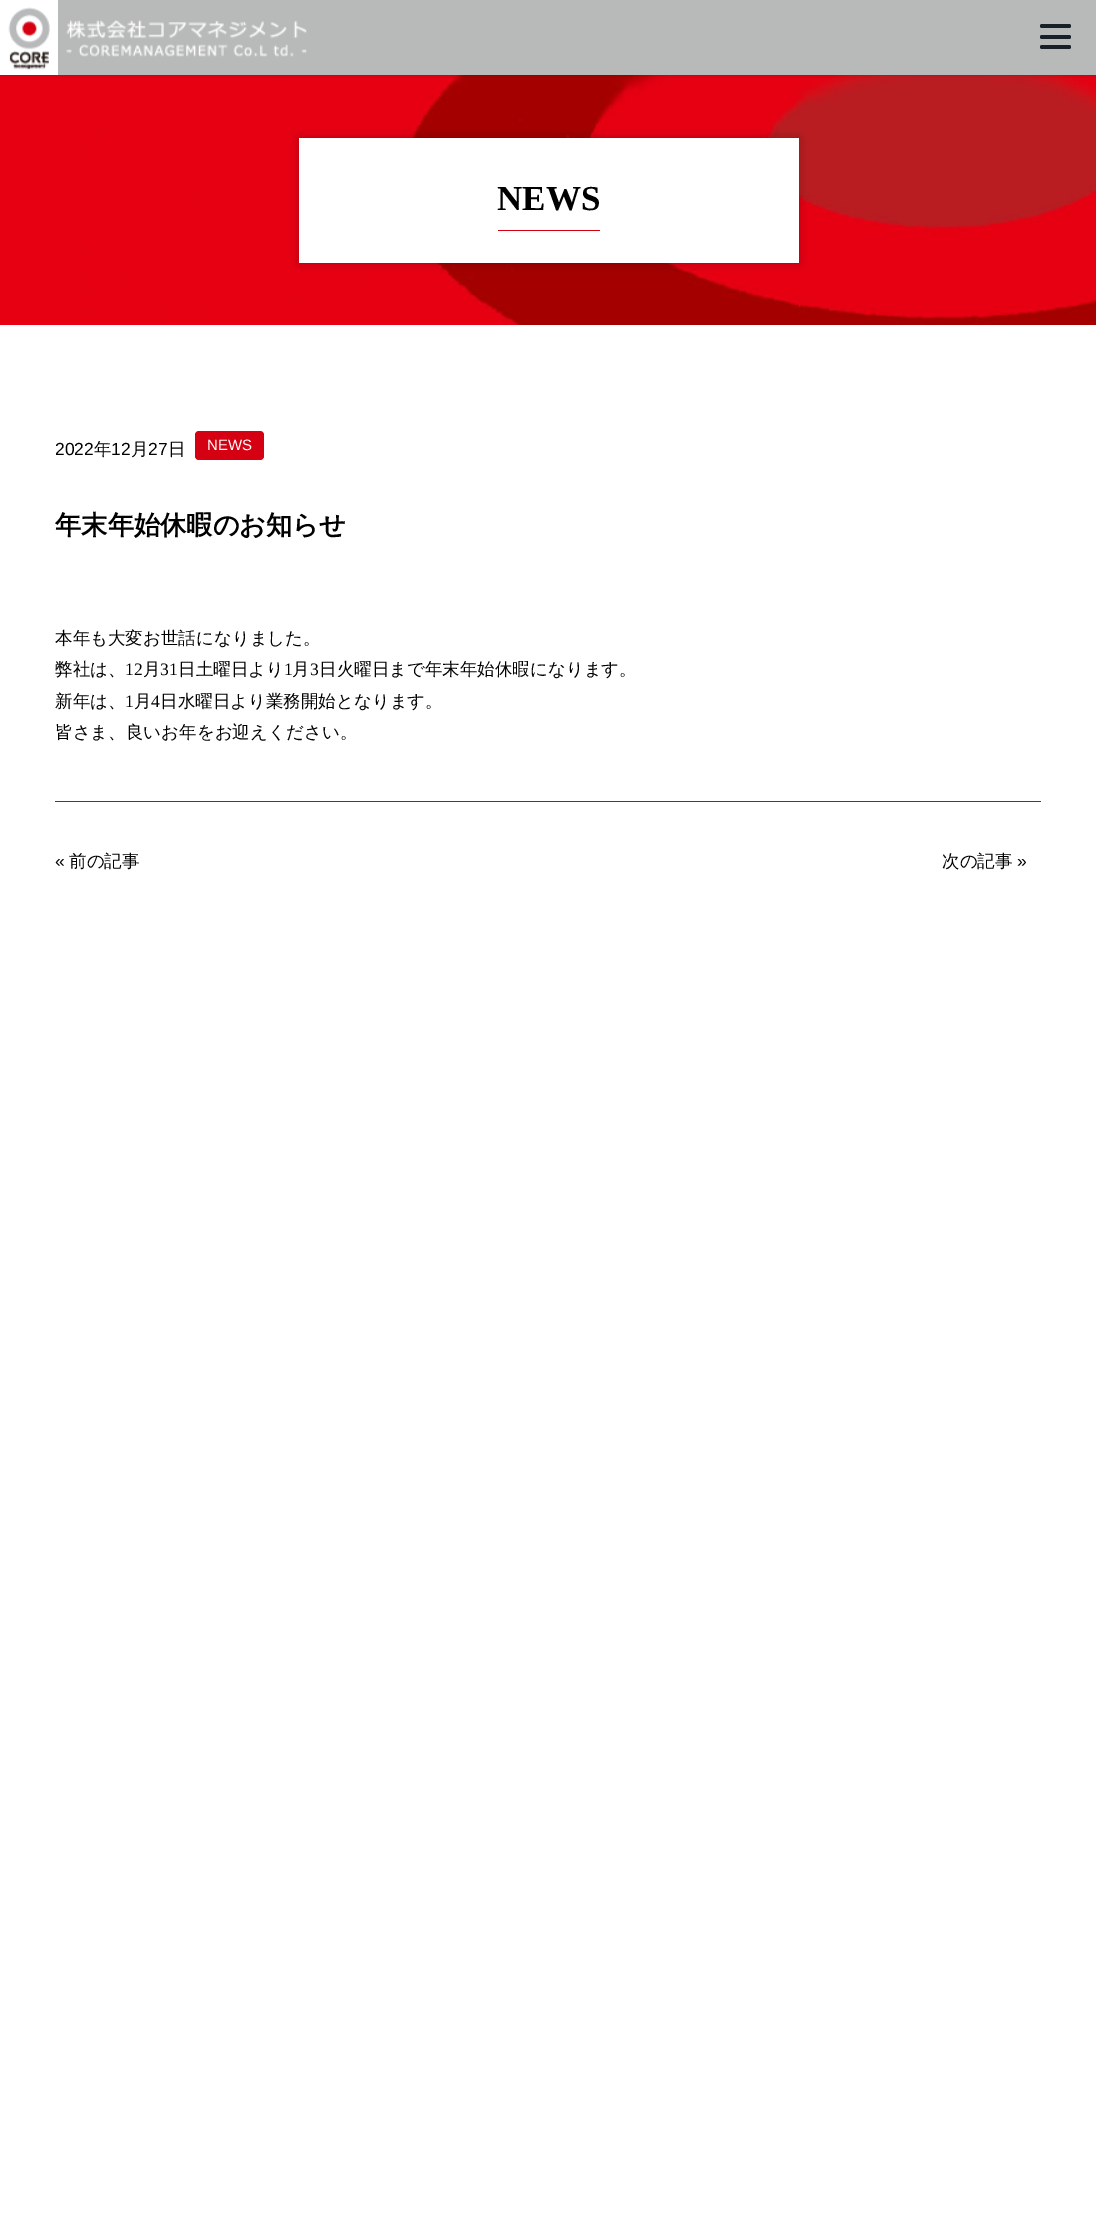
%!PS-Adobe-3.0
%%BoundingBox: 0 0 1096 2233
%%LanguageLevel: 3
%%Pages: 1
%%EndComments
%%BeginProlog
/setalpha { dup .setfillconstantalpha .setstrokeconstantalpha } def
/rrect { 5 dict begin { /r /h /w /y /x } { exch def } forall
  x r add y moveto x w add y 2 copy h add r arct x w add y h add x 1 index r arct
  x y h add x y r arct x y 2 copy exch w add exch r arct closepath end } def
/softshadow { 12 dict begin { /a /b /q /h /w /y /x } { exch def } forall gsave /was 0 def
  9 -2 -9 { dup b mul 4 div /e exch def 1 sub .425 mul 2.718 exch exp 1 add a .99 .min exch div /now exch def
    1 1 now sub 1 was sub div sub setalpha /was now def
    w h .min e 2 mul add 0 gt { x e sub y e sub w e 2 mul add h e 2 mul add
      q e add b .6 mul add w h .min 2 div e add .min 0 .max rrect fill } if } for grestore end } def
/drawimage { 5 dict begin { /h /w /y /x /name } { exch def } forall
  gsave x y translate w h scale
  w h 8 [w 0 0 h 0 0] name (r) file false 3 colorimage grestore end } def
%%EndProlog
%%BeginSetup
<< /PageSize [1096 2233] /PageUsesTransparency true >> setpagedevice
%%EndSetup
%%Page: 1 1
0 .pushpdf14devicefilter
0 2233 translate 1 -1 scale
4 setmiterlimit
1 setgray
0 0 1096 2233 rectfill
(images/3.raw) 0 75 1096 250 drawimage
0 setgray
0 0 1096 75 0 2 0.2 softshadow
0.722 0.725 0.725 setrgbcolor
58 0 1038 75 rectfill
1 setgray
0 0 58 75 rectfill
(images/1.raw) 8 7 42 63 drawimage
(images/2.raw) 66 20 241 37 drawimage
0.09 0.129 0.153 setrgbcolor
1040 24 31 4 2 rrect fill
1040 35 31 4 2 rrect fill
1040 45 31 4 2 rrect fill
0 setgray
299 138 500 125 0 5 0.25 softshadow
1 setgray
299 138 500 125 rectfill
0.835 0 0.071 setrgbcolor
498 230 102 1 rectfill
195 431 69 29 4 rrect fill
55 801 986 1 rectfill
/LiberationSerif-Bold [35 0 0 -35 0 0] selectfont
0 setgray
497 210 moveto (NEWS) show
/LiberationSans-Regular [17.5 0 0 -17.5 0 0] selectfont
55 455 moveto (2022) show
/WenQuanYiZenHei-Medium [17.5 0 0 -17.5 0 0] selectfont
94 455 moveto (年) show
/LiberationSans-Regular [17.5 0 0 -17.5 0 0] selectfont
111 455 moveto (12) show
/WenQuanYiZenHei-Medium [17.5 0 0 -17.5 0 0] selectfont
131 455 moveto (月) show
/LiberationSans-Regular [17.5 0 0 -17.5 0 0] selectfont
148 455 moveto (27) show
/WenQuanYiZenHei-Medium [17.5 0 0 -17.5 0 0] selectfont
168 455 moveto (日) show
/LiberationSans-Regular [15 0 0 -15 0 0] selectfont
1 setgray
207 450 moveto (NEWS) show
/WenQuanYiZenHei-Bold [26.25 0 0 -26.25 0 0] selectfont
0 setgray
55 534 moveto (年末年始休暇のお知らせ) show
/WenQuanYiZenHei-Medium [17.5 0 0 -17.5 0 0] selectfont
55 644 moveto (本年も大変お世話になりました。) show
55 675 moveto (弊社は、) show
/LiberationSerif-Regular [17.5 0 0 -17.5 0 0] selectfont
125 675 moveto (12) show
/WenQuanYiZenHei-Medium [17.5 0 0 -17.5 0 0] selectfont
143 675 moveto (月) show
/LiberationSerif-Regular [17.5 0 0 -17.5 0 0] selectfont
160 675 moveto (31) show
/WenQuanYiZenHei-Medium [17.5 0 0 -17.5 0 0] selectfont
178 675 moveto (日土曜日より) show
/LiberationSerif-Regular [17.5 0 0 -17.5 0 0] selectfont
284 675 moveto (1) show
/WenQuanYiZenHei-Medium [17.5 0 0 -17.5 0 0] selectfont
292 675 moveto (月) show
/LiberationSerif-Regular [17.5 0 0 -17.5 0 0] selectfont
310 675 moveto (3) show
/WenQuanYiZenHei-Medium [17.5 0 0 -17.5 0 0] selectfont
319 675 moveto (日火曜日まで年末年始休暇になります。) show
55 707 moveto (新年は、) show
/LiberationSerif-Regular [17.5 0 0 -17.5 0 0] selectfont
125 707 moveto (1) show
/WenQuanYiZenHei-Medium [17.5 0 0 -17.5 0 0] selectfont
134 707 moveto (月) show
/LiberationSerif-Regular [17.5 0 0 -17.5 0 0] selectfont
151 707 moveto (4) show
/WenQuanYiZenHei-Medium [17.5 0 0 -17.5 0 0] selectfont
160 707 moveto (日水曜日より業務開始となります。) show
55 738 moveto (皆さま、良いお年をお迎えください。) show
/LiberationSans-Regular [17.5 0 0 -17.5 0 0] selectfont
55 867 moveto («) show
/WenQuanYiZenHei-Medium [17.5 0 0 -17.5 0 0] selectfont
69 867 moveto (前の記事) show
942 867 moveto (次の記事) show
/LiberationSans-Regular [17.5 0 0 -17.5 0 0] selectfont
1017 867 moveto (») show
.poppdf14devicefilter showpage
%%EOF
